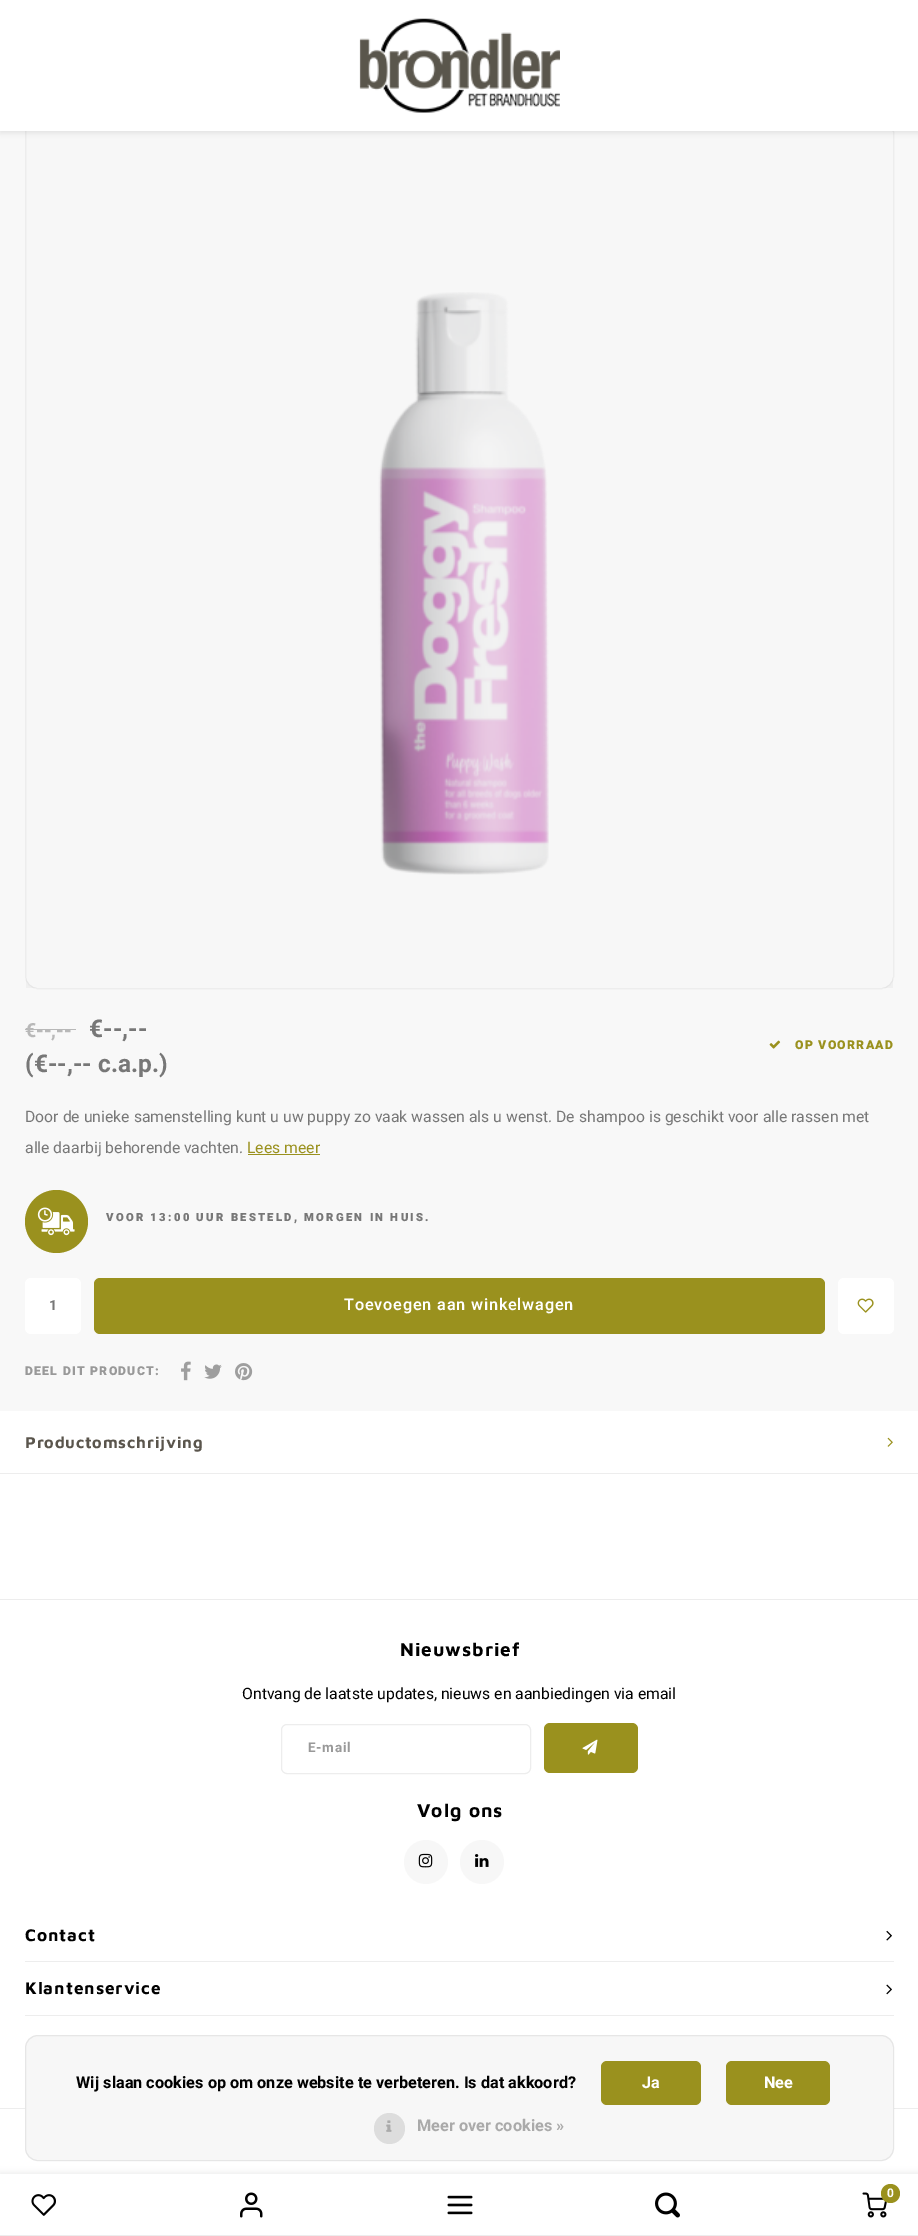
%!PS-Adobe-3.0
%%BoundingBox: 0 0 918 2236
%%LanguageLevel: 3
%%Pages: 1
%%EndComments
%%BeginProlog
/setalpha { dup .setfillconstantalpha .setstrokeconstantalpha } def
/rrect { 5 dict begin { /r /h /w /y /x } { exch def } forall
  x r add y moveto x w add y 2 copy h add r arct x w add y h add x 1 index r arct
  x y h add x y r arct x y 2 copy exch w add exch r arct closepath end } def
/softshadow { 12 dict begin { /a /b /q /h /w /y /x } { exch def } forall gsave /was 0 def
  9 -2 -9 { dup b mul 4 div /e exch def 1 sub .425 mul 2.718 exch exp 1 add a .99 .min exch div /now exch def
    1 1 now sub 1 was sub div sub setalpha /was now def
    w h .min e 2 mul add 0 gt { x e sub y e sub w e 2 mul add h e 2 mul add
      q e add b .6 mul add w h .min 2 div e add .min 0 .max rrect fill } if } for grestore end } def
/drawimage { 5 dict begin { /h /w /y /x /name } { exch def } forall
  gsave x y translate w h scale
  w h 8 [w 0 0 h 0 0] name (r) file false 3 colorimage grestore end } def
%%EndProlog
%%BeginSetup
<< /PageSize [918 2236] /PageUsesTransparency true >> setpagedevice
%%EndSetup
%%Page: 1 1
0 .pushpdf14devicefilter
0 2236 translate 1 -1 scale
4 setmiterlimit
1 setgray
0 0 918 2236 rectfill
0.973 setgray
0 131 918 1280 rectfill
1 setgray
25 120 869 869 13 rrect fill
0.07 setalpha
0 setgray
25.5 120.5 868 868 12.5 rrect stroke
1 setalpha
(images/2.raw) 378 292 171 583 drawimage
0.03 setalpha
26 131 867 857 rectfill
1 setalpha
0 1 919 132 0 2.5 0.08 softshadow
1 setgray
0 0 918 131 rectfill
(images/1.raw) 359 18 201 95 drawimage
0.722 setgray
25 1029 51 1 rectfill
(images/3.raw) 769 1040 12 9 drawimage
0.604 0.569 0.118 setrgbcolor
248 1154 72 1 rectfill
newpath 56.5 1221.5 31.5 0 360 arc closepath fill
(images/4.raw) 37 1207 38 29 drawimage
1 setgray
25 1278 56 56 6 rrect fill
0.604 0.569 0.118 setrgbcolor
94 1278 731 56 6 rrect fill
1 setgray
838 1278 56 56 6 rrect fill
(images/5.raw) 857 1298 17 15 drawimage
(images/6.raw) 181 1361 10 20 drawimage
(images/7.raw) 204 1364 18 15 drawimage
(images/8.raw) 235 1363 18 18 drawimage
0.929 setgray
0 1473 918 1 rectfill
(images/9.raw) 887 1437 6 10 drawimage
0 1599 918 1 rectfill
281.5 1724.5 249 49 5.5 rrect stroke
0.604 0.569 0.118 setrgbcolor
544 1723 94 50 6 rrect fill
(images/10.raw) 582 1739 16 16 drawimage
0.969 setgray
newpath 426 1862 22 0 360 arc closepath fill
(images/11.raw) 418 1853 15 15 drawimage
newpath 482 1862 22 0 360 arc closepath fill
(images/12.raw) 475 1854 14 13 drawimage
0.929 setgray
25 1961 869 1 rectfill
(images/13.raw) 886 1930 6 11 drawimage
25 2015 869 1 rectfill
(images/14.raw) 886 1984 6 11 drawimage
0 2108 918 1 rectfill
0.969 setgray
25 2035 869 126 13 rrect fill
0.07 setalpha
0 setgray
25.5 2035.5 868 125 12.5 rrect stroke
1 setalpha
0.604 0.569 0.118 setrgbcolor
601 2061 100 44 6 rrect fill
726 2061 104 44 6 rrect fill
0.867 setgray
newpath 389.5 2128.5 15.5 0 360 arc closepath fill
(images/15.raw) 386 2120 6 12 drawimage
0 setgray
0 2173 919 62 0 3 0.08 softshadow
1 setgray
0 2174 918 61 rectfill
0.929 setgray
0 2235 918 1 rectfill
(images/16.raw) 31 2194 25 22 drawimage
(images/17.raw) 240 2192 23 26 drawimage
(images/18.raw) 447 2195 26 20 drawimage
(images/19.raw) 655 2192 25 26 drawimage
(images/20.raw) 862 2192 25 26 drawimage
0.604 0.569 0.118 setrgbcolor
newpath 890.5 2193.5 9.5 0 360 arc closepath fill
/Heebo-Bold [19.5 0 0 -19.5 0 0] selectfont
0.722 setgray
25 1037 moveto (€--,--) show
/Heebo-Bold [24.5 0 0 -24.5 0 0] selectfont
0.467 setgray
89 1037 moveto (€--,--) show
25 1072 moveto (\(€--,-- c.a.p.\)) show
/Heebo-Black [12.25 0 0 -12.25 0 0] selectfont
0.604 0.569 0.118 setrgbcolor
795 1049 moveto 1.25 0 (OP VOORRAAD) ashow
/Heebo-Regular [15.75 0 0 -15.75 0 0] selectfont
0.467 setgray
25 1122 moveto (Door de unieke samenstelling kunt u uw puppy zo vaak wassen als u wenst. De shampoo is geschikt voor alle rassen met) show
25 1153 moveto (alle daarbij behorende vachten.) show
0.604 0.569 0.118 setrgbcolor
247 1153 moveto (Lees meer) show
/Heebo-Black [11.25 0 0 -11.25 0 0] selectfont
0.467 setgray
106 1221 moveto 2.25 0 (VOOR 13:00 UUR BESTELD, MORGEN IN HUIS.) ashow
/Heebo-Bold [14 0 0 -14 0 0] selectfont
49 1310 moveto 1 0 (1) ashow
/Heebo-SemiBold [16.25 0 0 -16.25 0 0] selectfont
1 setgray
344 1310 moveto 0.8 0 (Toevoegen aan winkelwagen) ashow
/Heebo-Black [12.25 0 0 -12.25 0 0] selectfont
0.6 setgray
25 1375 moveto 1.25 0 (DEEL DIT PRODUCT:) ashow
/MavenPro-Bold [16.25 0 0 -16.25 0 0] selectfont
0.353 0.333 0.298 setrgbcolor
25 1448 moveto 0.8 0 (Productomschrijving) ashow
/MavenPro-Bold [19 0 0 -19 0 0] selectfont
0 setgray
400 1656 moveto 1 0 (Nieuwsbrief) ashow
/Heebo-Regular [15.75 0 0 -15.75 0 0] selectfont
242 1699 moveto (Ontvang de laatste updates, nieuws en aanbiedingen via email) show
/Heebo-Bold [13.5 0 0 -13.5 0 0] selectfont
0.6 setgray
308 1752 moveto 0.75 0 (E-mail) ashow
/MavenPro-Bold [19 0 0 -19 0 0] selectfont
0 setgray
417 1817 moveto 1 0 (Volg ons) ashow
/MavenPro-Bold [17.25 0 0 -17.25 0 0] selectfont
25 1941 moveto 0.9 0 (Contact) ashow
25 1994 moveto 0.9 0 (Klantenservice) ashow
/Heebo-Bold [16.25 0 0 -16.25 0 0] selectfont
76 2088 moveto (Wij slaan cookies op om onze website te verbeteren. Is dat akkoord?) show
1 setgray
642 2088 moveto (Ja) show
764 2088 moveto (Nee) show
0.667 setgray
417 2131 moveto (Meer over cookies ») show
/Heebo-Bold [12 0 0 -12 0 0] selectfont
1 setgray
887 2197 moveto (0) show
.poppdf14devicefilter showpage
%%EOF
